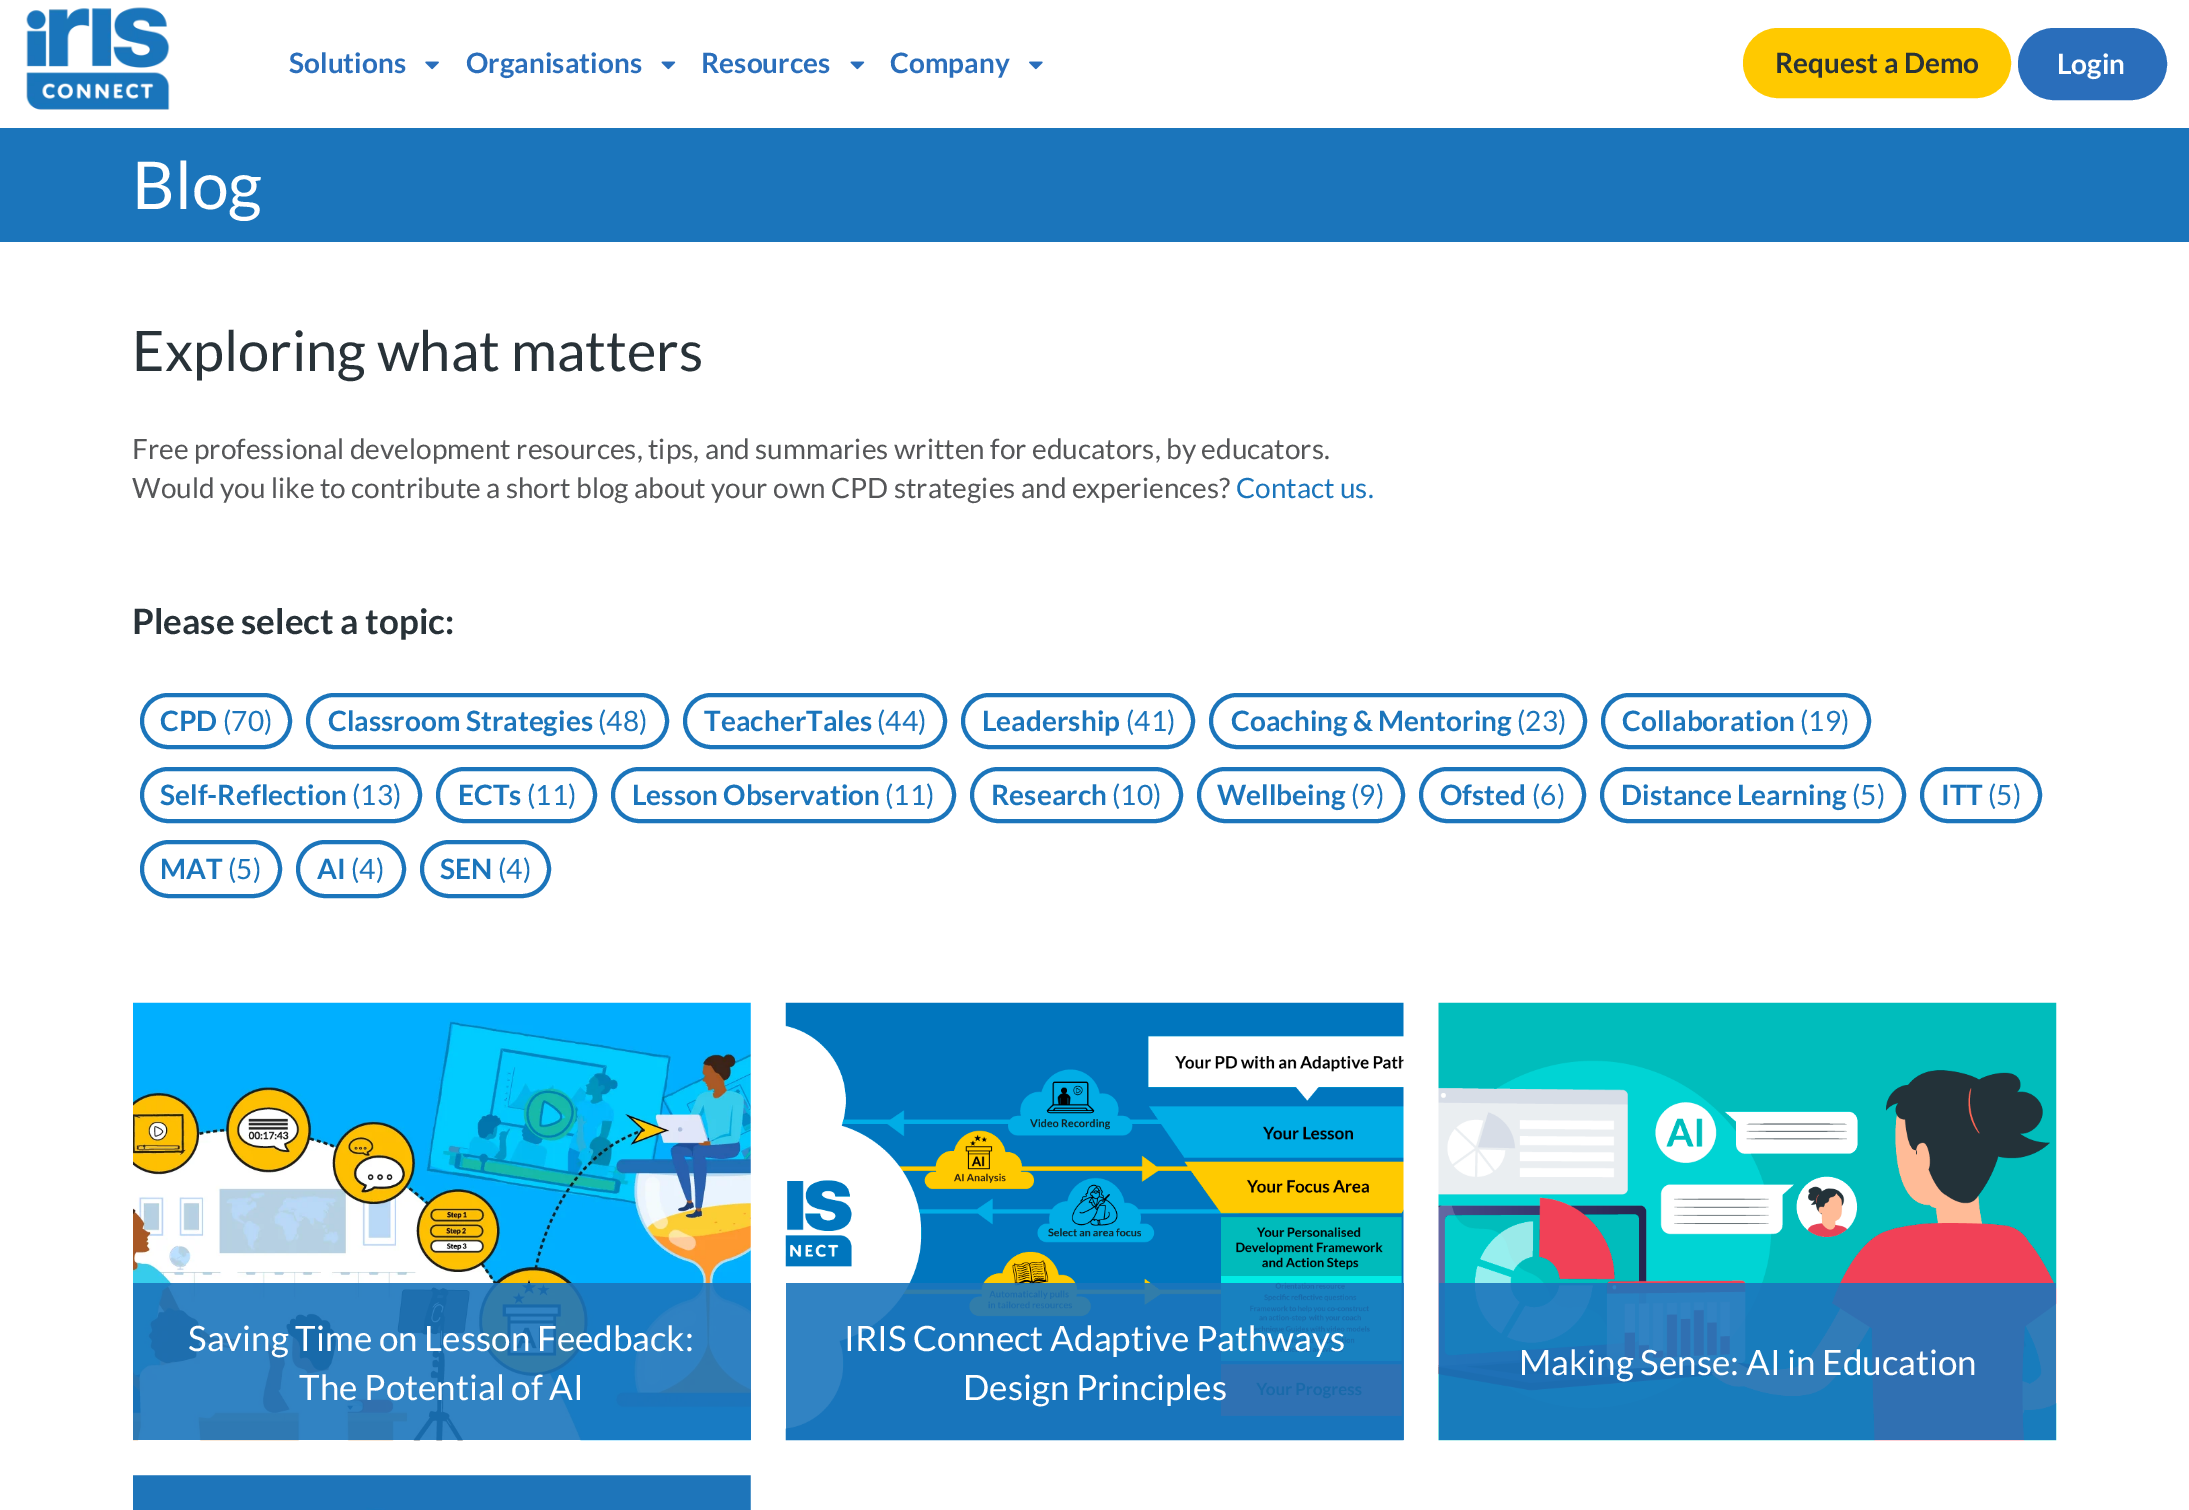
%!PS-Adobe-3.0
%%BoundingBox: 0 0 2189 1510
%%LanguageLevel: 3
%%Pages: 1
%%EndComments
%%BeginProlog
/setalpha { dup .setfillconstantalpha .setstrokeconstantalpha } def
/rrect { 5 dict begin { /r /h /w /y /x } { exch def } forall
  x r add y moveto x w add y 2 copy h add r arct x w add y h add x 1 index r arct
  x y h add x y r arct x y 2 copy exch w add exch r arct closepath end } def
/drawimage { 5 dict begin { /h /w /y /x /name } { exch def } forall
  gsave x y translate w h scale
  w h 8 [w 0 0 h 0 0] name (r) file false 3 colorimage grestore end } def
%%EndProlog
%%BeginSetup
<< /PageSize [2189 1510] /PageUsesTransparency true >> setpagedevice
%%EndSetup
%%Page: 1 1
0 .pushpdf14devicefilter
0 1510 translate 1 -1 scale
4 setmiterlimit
1 setgray
0 0 2189 1510 rectfill
(images/1.raw) 26 7 144 103 drawimage
(images/2.raw) 425 61 14 9 drawimage
(images/3.raw) 661 61 15 9 drawimage
(images/3.raw) 850 61 15 9 drawimage
(images/4.raw) 1029 61 14 9 drawimage
1 0.788 0 setrgbcolor
1745 30 264 66 33 rrect gsave fill grestore
4 setlinewidth
stroke
0.165 0.431 0.733 setrgbcolor
2020 30 145 68 34 rrect gsave fill grestore
stroke
0.106 0.459 0.733 setrgbcolor
0 128 2189 114 rectfill
142 695 148 52 26 rrect stroke
308 695 359 52 26 rrect stroke
685 695 260 52 26 rrect stroke
963 695 230 52 26 rrect stroke
1211 695 374 52 26 rrect stroke
1603 695 266 52 26 rrect stroke
142 769 278 52 26 rrect stroke
438 769 157 52 26 rrect stroke
613 769 341 52 26 rrect stroke
972 769 209 52 26 rrect stroke
1199 769 204 52 26 rrect stroke
1421 769 163 52 26 rrect stroke
1602 769 302 52 26 rrect stroke
1922 769 118 52 26 rrect stroke
142 842 138 54 27 rrect stroke
298 842 106 54 27 rrect stroke
422 842 127 54 27 rrect stroke
(images/5.raw) 133 1002 618 439 drawimage
0.9 setalpha
0.106 0.459 0.737 setrgbcolor
133 1283 618 157 rectfill
1 setalpha
(images/6.raw) 785 1002 619 439 drawimage
0.9 setalpha
786 1283 618 157 rectfill
1 setalpha
(images/7.raw) 1438 1002 619 439 drawimage
0.9 setalpha
1439 1283 617 157 rectfill
1 setalpha
(images/8.raw) 133 1475 618 35 drawimage
/Lato-Bold [28 0 0 -28 0 0] selectfont
0.165 0.431 0.733 setrgbcolor
289 73 moveto (Solutions) show
466 73 moveto (Organisations) show
701 73 moveto (Resources) show
890 73 moveto (Company) show
0.157 0.196 0.22 setrgbcolor
1775 73 moveto (Request a Demo) show
1 setgray
2057 74 moveto (Login) show
/Lato-Regular [66 0 0 -66 0 0] selectfont
132 209 moveto (Blog) show
/Lato-Regular [56 0 0 -56 0 0] selectfont
0.157 0.196 0.22 setrgbcolor
132 371 moveto (Exploring what matters) show
/Lato-Regular [28 0 0 -28 0 0] selectfont
0.333 0.337 0.345 setrgbcolor
132 459 moveto (Free professional development resources, tips, and summaries written for educators, by educators.) show
132 498 moveto (Would you like to contribute a short blog about your own CPD strategies and experiences?) show
0.106 0.459 0.733 setrgbcolor
1236 498 moveto (Contact us.) show
/Lato-Bold [35 0 0 -35 0 0] selectfont
0.157 0.196 0.22 setrgbcolor
132 634 moveto (Please select a topic:) show
/Lato-Bold [28 0 0 -28 0 0] selectfont
0.106 0.459 0.733 setrgbcolor
160 731 moveto (CPD) show
/Lato-Regular [28 0 0 -28 0 0] selectfont
223 731 moveto (\(70\)) show
/Lato-Bold [28 0 0 -28 0 0] selectfont
328 731 moveto (Classroom Strategies) show
/Lato-Regular [28 0 0 -28 0 0] selectfont
598 731 moveto (\(48\)) show
/Lato-Bold [28 0 0 -28 0 0] selectfont
704 731 moveto (TeacherTales) show
/Lato-Regular [28 0 0 -28 0 0] selectfont
877 731 moveto (\(44\)) show
/Lato-Bold [28 0 0 -28 0 0] selectfont
982 731 moveto (Leadership) show
/Lato-Regular [28 0 0 -28 0 0] selectfont
1126 731 moveto (\(41\)) show
/Lato-Bold [28 0 0 -28 0 0] selectfont
1231 731 moveto (Coaching & Mentoring) show
/Lato-Regular [28 0 0 -28 0 0] selectfont
1517 731 moveto (\(23\)) show
/Lato-Bold [28 0 0 -28 0 0] selectfont
1622 731 moveto (Collaboration) show
/Lato-Regular [28 0 0 -28 0 0] selectfont
1800 731 moveto (\(19\)) show
/Lato-Bold [28 0 0 -28 0 0] selectfont
160 805 moveto (Self-Reflection) show
/Lato-Regular [28 0 0 -28 0 0] selectfont
352 805 moveto (\(13\)) show
/Lato-Bold [28 0 0 -28 0 0] selectfont
458 805 moveto (ECTs) show
/Lato-Regular [28 0 0 -28 0 0] selectfont
527 805 moveto (\(11\)) show
/Lato-Bold [28 0 0 -28 0 0] selectfont
632 805 moveto (Lesson Observation) show
/Lato-Regular [28 0 0 -28 0 0] selectfont
885 805 moveto (\(11\)) show
/Lato-Bold [28 0 0 -28 0 0] selectfont
991 805 moveto (Research) show
/Lato-Regular [28 0 0 -28 0 0] selectfont
1112 805 moveto (\(10\)) show
/Lato-Bold [28 0 0 -28 0 0] selectfont
1217 805 moveto (Wellbeing) show
/Lato-Regular [28 0 0 -28 0 0] selectfont
1351 805 moveto (\(9\)) show
/Lato-Bold [28 0 0 -28 0 0] selectfont
1440 805 moveto (Ofsted) show
/Lato-Regular [28 0 0 -28 0 0] selectfont
1532 805 moveto (\(6\)) show
/Lato-Bold [28 0 0 -28 0 0] selectfont
1621 805 moveto (Distance Learning) show
/Lato-Regular [28 0 0 -28 0 0] selectfont
1852 805 moveto (\(5\)) show
/Lato-Bold [28 0 0 -28 0 0] selectfont
1941 805 moveto (ITT) show
/Lato-Regular [28 0 0 -28 0 0] selectfont
1988 805 moveto (\(5\)) show
/Lato-Bold [28 0 0 -28 0 0] selectfont
160 879 moveto (MAT) show
/Lato-Regular [28 0 0 -28 0 0] selectfont
228 879 moveto (\(5\)) show
/Lato-Bold [28 0 0 -28 0 0] selectfont
317 879 moveto (AI) show
/Lato-Regular [28 0 0 -28 0 0] selectfont
351 879 moveto (\(4\)) show
/Lato-Bold [28 0 0 -28 0 0] selectfont
440 879 moveto (SEN) show
/Lato-Regular [28 0 0 -28 0 0] selectfont
498 879 moveto (\(4\)) show
/Lato-Regular [35 0 0 -35 0 0] selectfont
1 setgray
188 1351 moveto (Saving Time on Lesson Feedback:) show
299 1400 moveto (The Potential of AI) show
844 1351 moveto (IRIS Connect Adaptive Pathways) show
963 1400 moveto (Design Principles) show
1519 1375 moveto (Making Sense: AI in Education) show
.poppdf14devicefilter showpage
%%EOF
